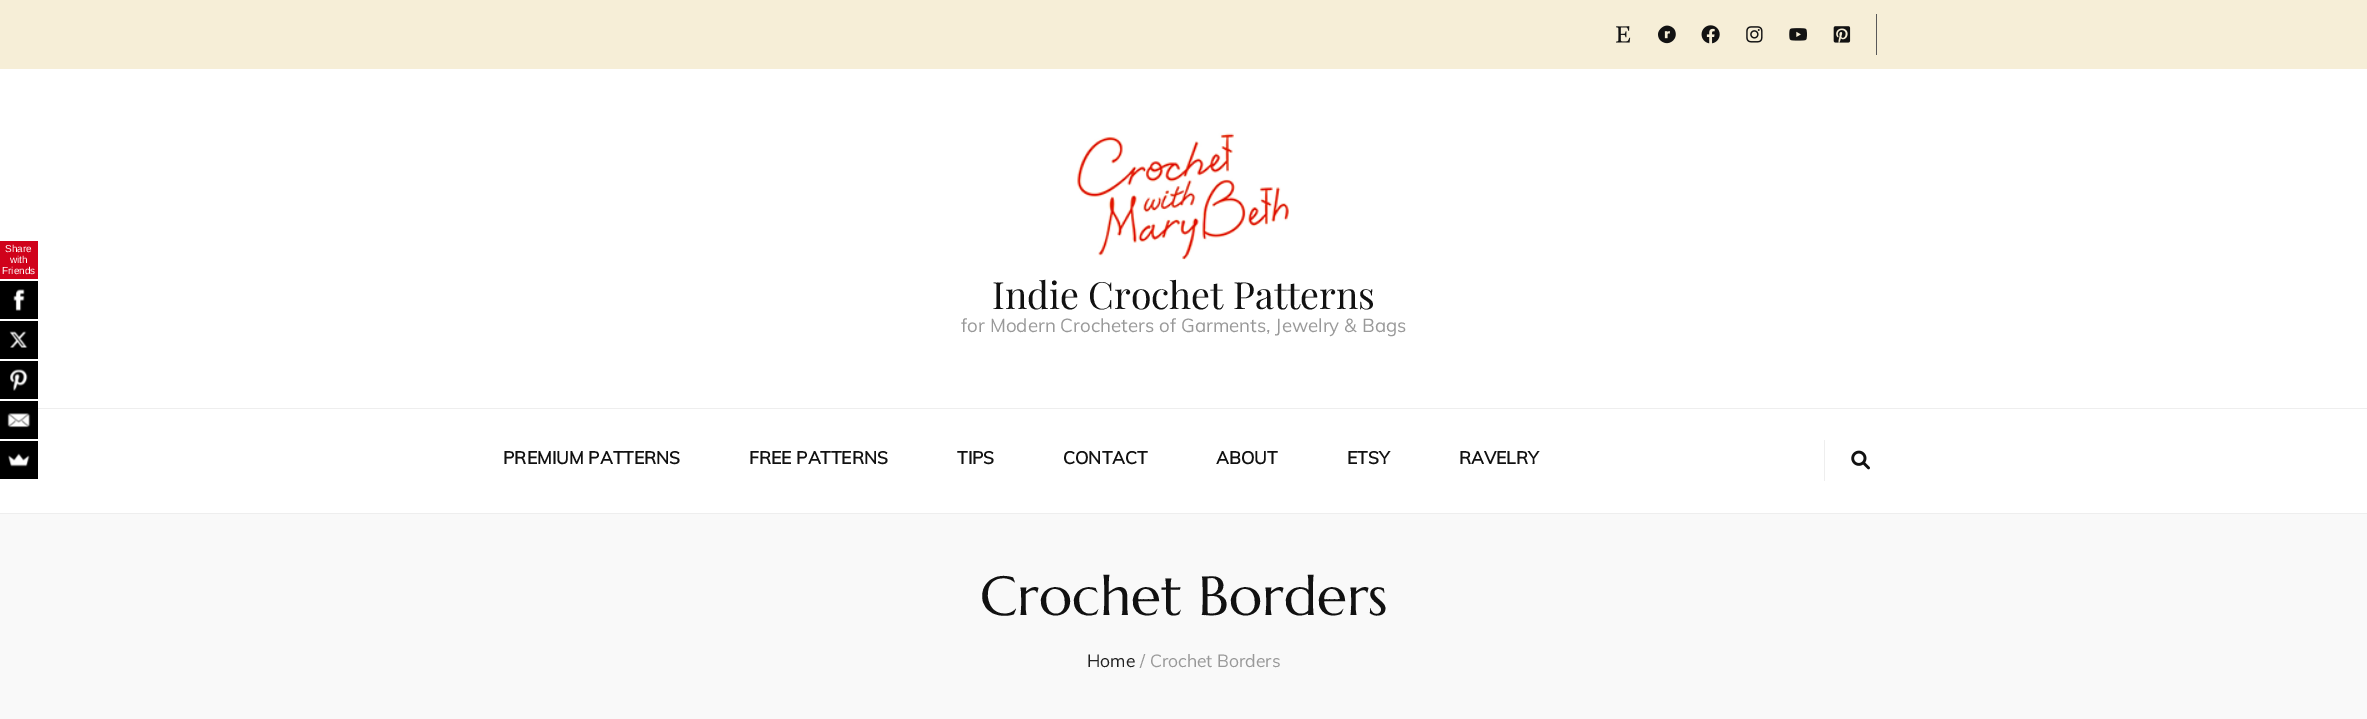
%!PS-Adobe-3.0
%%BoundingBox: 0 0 2367 719
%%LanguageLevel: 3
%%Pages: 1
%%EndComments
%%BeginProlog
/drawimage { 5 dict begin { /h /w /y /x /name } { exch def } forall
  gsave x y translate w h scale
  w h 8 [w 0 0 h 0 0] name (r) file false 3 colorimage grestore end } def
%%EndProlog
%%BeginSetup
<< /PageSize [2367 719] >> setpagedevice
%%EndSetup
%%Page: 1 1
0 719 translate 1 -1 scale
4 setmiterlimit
1 setgray
0 0 2367 719 rectfill
0.816 0.008 0.106 setrgbcolor
0 241 38 38 rectfill
0 setgray
0 281 38 38 rectfill
(images/1.raw) 13 289 12 22 drawimage
0 321 38 38 rectfill
(images/2.raw) 9 331 19 17 drawimage
0 361 38 38 rectfill
(images/3.raw) 10 369 18 22 drawimage
0 401 38 38 rectfill
(images/4.raw) 7 413 24 15 drawimage
0 441 38 38 rectfill
(images/5.raw) 8 453 22 14 drawimage
0.965 0.933 0.843 setrgbcolor
0 0 2367 69 rectfill
0.349 setgray
1876 14 1 41 rectfill
(images/6.raw) 1616 26 15 17 drawimage
(images/7.raw) 1658 25 18 19 drawimage
(images/8.raw) 1701 25 19 19 drawimage
(images/9.raw) 1746 26 17 17 drawimage
(images/10.raw) 1789 28 18 13 drawimage
(images/11.raw) 1833 26 18 17 drawimage
(images/12.raw) 1077 133 212 127 drawimage
0.933 setgray
38 408 2329 1 rectfill
0 513 2367 1 rectfill
1824 440 1 41 rectfill
(images/13.raw) 1851 450 19 20 drawimage
0.976 setgray
0 514 2367 205 rectfill
/LiberationSans-Regular [10 0 0 -10 0 0] selectfont
1 setgray
5 252 moveto (Share) show
10 263 moveto (with) show
2 274 moveto (Friends) show
/PlayfairDisplay-Regular [37.5 0 0 -37.5 0 0] selectfont
0.067 setgray
992 309 moveto (Indie Crochet Patterns) show
/Muli-Regular [18.75 0 0 -18.75 0 0] selectfont
0.6 setgray
961 332 moveto (for Modern Crocheters of Garments, Jewelry & Bags) show
/Muli-Bold [17.5 0 0 -17.5 0 0] selectfont
0.067 setgray
503 464 moveto (PREMIUM PATTERNS) show
749 464 moveto (FREE PATTERNS) show
957 464 moveto (TIPS) show
1063 464 moveto (CONTACT) show
1216 464 moveto (ABOUT) show
1347 464 moveto (ETSY) show
1459 464 moveto (RAVELRY) show
/Marcellus-Regular [55 0 0 -55 0 0] selectfont
980 615 moveto (Crochet Borders) show
/Muli-Regular [17.5 0 0 -17.5 0 0] selectfont
0.133 setgray
1087 667 moveto (Home) show
0.6 setgray
1140 667 moveto (/ Crochet Borders) show
showpage
%%EOF
